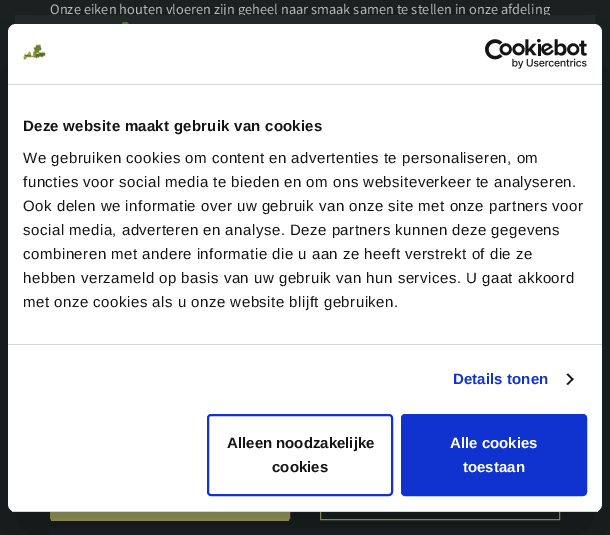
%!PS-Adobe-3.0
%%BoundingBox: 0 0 610 535
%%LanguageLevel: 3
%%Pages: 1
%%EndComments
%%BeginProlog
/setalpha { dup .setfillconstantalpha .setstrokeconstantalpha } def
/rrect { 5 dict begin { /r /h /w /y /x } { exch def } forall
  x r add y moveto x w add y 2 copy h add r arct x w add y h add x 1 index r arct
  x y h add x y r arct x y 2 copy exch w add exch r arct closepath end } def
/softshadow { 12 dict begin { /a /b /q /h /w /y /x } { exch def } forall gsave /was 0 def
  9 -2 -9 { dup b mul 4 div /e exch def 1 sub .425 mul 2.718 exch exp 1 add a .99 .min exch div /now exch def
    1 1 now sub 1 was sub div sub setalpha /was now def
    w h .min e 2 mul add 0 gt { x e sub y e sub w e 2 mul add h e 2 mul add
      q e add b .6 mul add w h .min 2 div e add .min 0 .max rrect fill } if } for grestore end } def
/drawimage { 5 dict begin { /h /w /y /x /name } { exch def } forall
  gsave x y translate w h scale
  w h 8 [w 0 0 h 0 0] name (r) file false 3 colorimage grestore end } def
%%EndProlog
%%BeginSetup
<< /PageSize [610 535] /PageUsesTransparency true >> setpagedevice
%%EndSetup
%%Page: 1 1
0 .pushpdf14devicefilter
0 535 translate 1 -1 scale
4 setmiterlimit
0.106 0.125 0.129 setrgbcolor
0 0 610 535 rectfill
0.141 0.161 0.169 setrgbcolor
290 512 30 1 rectfill
50 528 510 7 rectfill
0.5 setalpha
0.106 0.125 0.129 setrgbcolor
50 512 510 23 rectfill
1 setalpha
0.651 0.659 0.404 setrgbcolor
50.5 465.5 239 53 rectstroke
51 512 238 9 rectfill
320.5 465.5 239 54 rectstroke
/SourceSansPro-Regular [14.4 0 0 -14.4 0 0] selectfont
0.733 0.737 0.741 setrgbcolor
50 14 moveto (Onze eiken houten vloeren zijn geheel naar smaak samen te stellen in onze afdeling) show
0.141 0.161 0.169 setrgbcolor
15 15 580 10 rectfill
(images/1.raw) 121 21 8 3 drawimage
0 setgray
8 56 594 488 8 34 0.3 softshadow
1 setgray
8 24 594 488 8 rrect fill
0.839 setgray
8 84 594 1 rectfill
(images/2.raw) 23 44 23 16 drawimage
(images/3.raw) 485 39 102 30 drawimage
8 344 594 1 rectfill
/LiberationSans-Bold [15 0 0 -15 0 0] selectfont
0.078 setgray
23 131 moveto 0.25 0 (Deze website maakt gebruik van cookies) ashow
/LiberationSans-Regular [15 0 0 -15 0 0] selectfont
23 163 moveto 0.5 0 (We gebruiken cookies om content en advertenties te personaliseren, om) ashow
23 187 moveto 0.5 0 (functies voor social media te bieden en om ons websiteverkeer te analyseren.) ashow
23 211 moveto 0.5 0 (Ook delen we informatie over uw gebruik van onze site met onze partners voor) ashow
23 235 moveto 0.5 0 (social media, adverteren en analyse. Deze partners kunnen deze gegevens) ashow
23 259 moveto 0.5 0 (combineren met andere informatie die u aan ze heeft verstrekt of die ze) ashow
23 283 moveto 0.5 0 (hebben verzameld op basis van uw gebruik van hun services. U gaat akkoord) ashow
23 307 moveto 0.5 0 (met onze cookies als u onze website blijft gebruiken.) ashow
/LiberationSans-Bold [15 0 0 -15 0 0] selectfont
0.063 0.196 0.812 setrgbcolor
453 384 moveto 0.1 0 (Details tonen) ashow
0.078 setgray
newpath 568 373.5 moveto 573.5 379 lineto 572.5 380.5 lineto 566.5 374.5 lineto closepath fill
newpath 572.5 378 moveto 573.5 379 lineto 568 385 lineto 566.5 384 lineto closepath fill
gsave
8 24 594 488 8 rrect clip newpath
0.839 setgray
8 511 594 1 rectfill
grestore
0.063 0.196 0.812 setrgbcolor
2 setlinewidth
208 415 184 80 3 rrect stroke
0.078 setgray
227 448 moveto (Alleen noodzakelijke) show
272 472 moveto (cookies) show
0.063 0.196 0.812 setrgbcolor
402 415 184 80 3 rrect gsave fill grestore
stroke
1 setgray
450 448 moveto (Alle cookies) show
463 472 moveto (toestaan) show
.poppdf14devicefilter showpage
%%EOF
